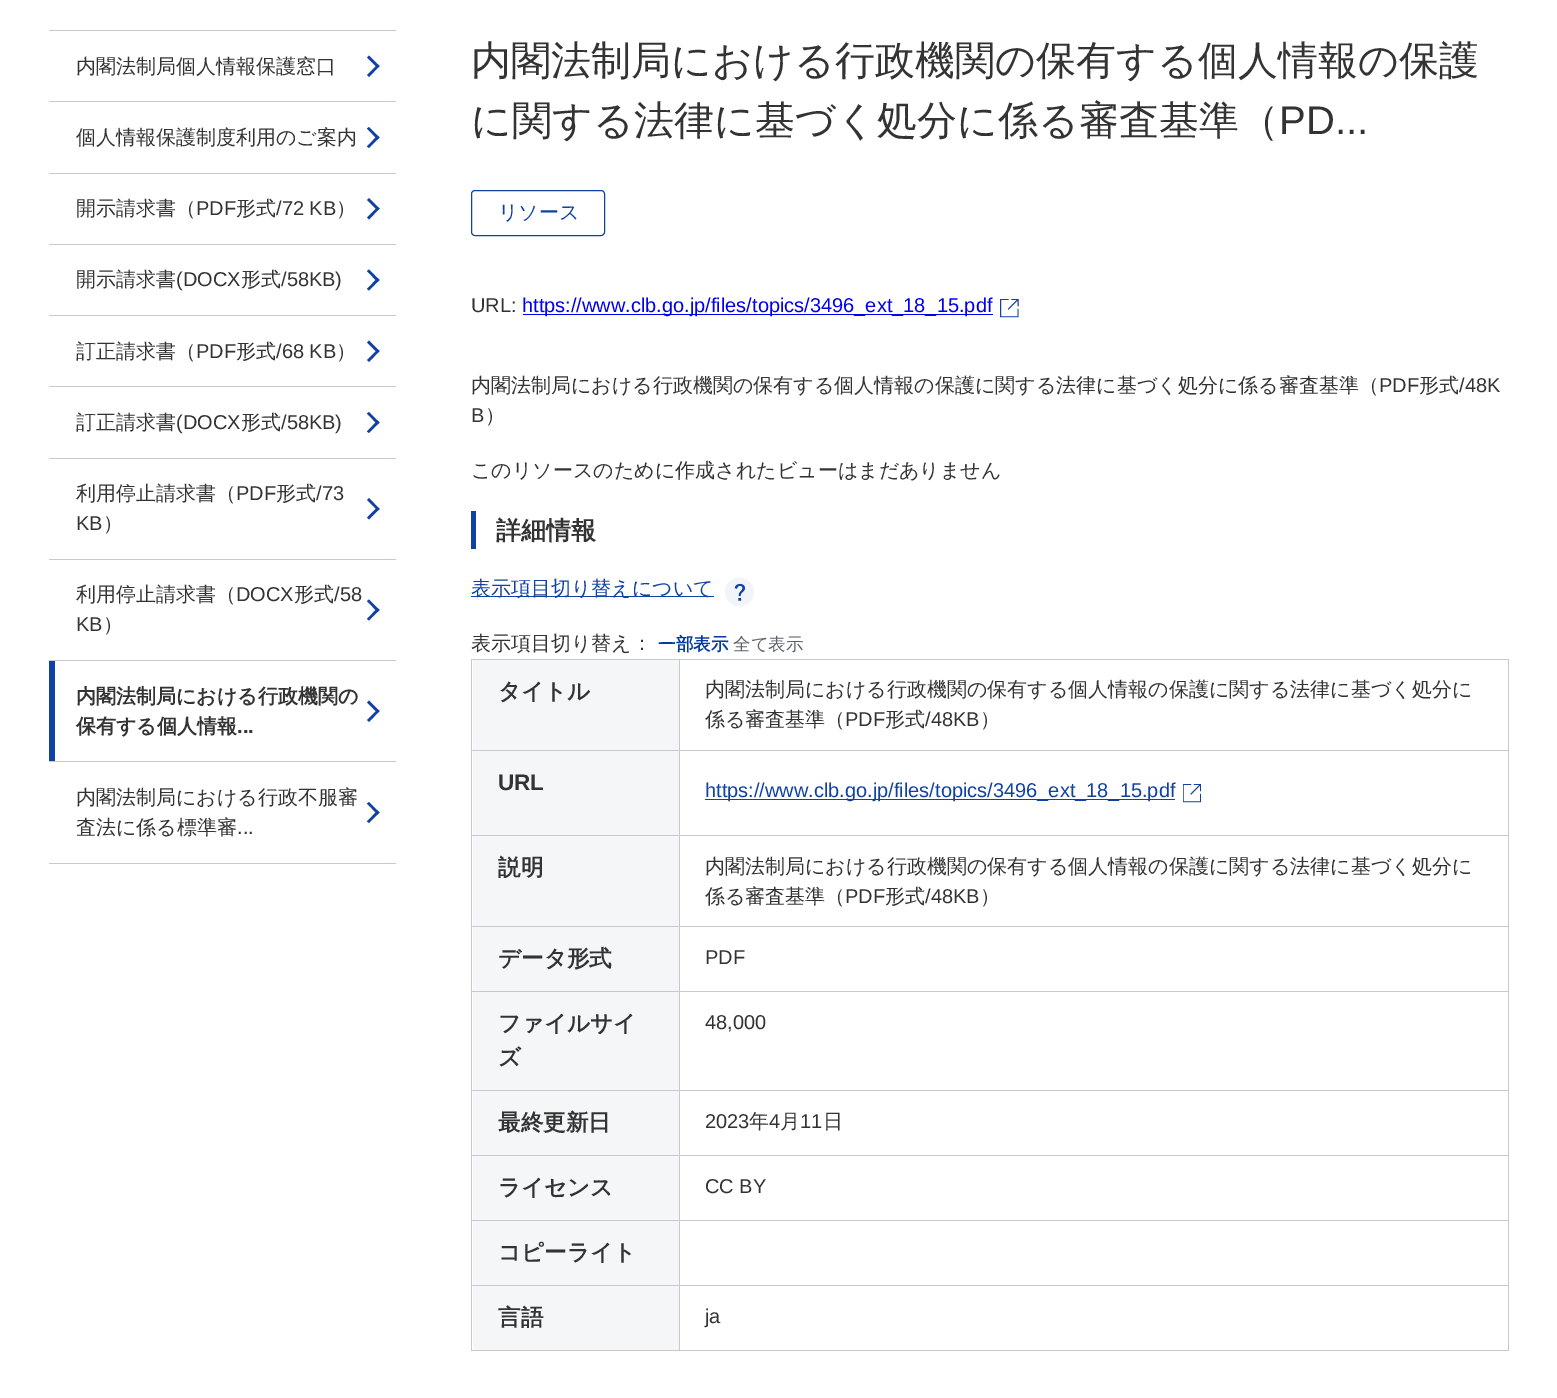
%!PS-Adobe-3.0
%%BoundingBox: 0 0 1557 1398
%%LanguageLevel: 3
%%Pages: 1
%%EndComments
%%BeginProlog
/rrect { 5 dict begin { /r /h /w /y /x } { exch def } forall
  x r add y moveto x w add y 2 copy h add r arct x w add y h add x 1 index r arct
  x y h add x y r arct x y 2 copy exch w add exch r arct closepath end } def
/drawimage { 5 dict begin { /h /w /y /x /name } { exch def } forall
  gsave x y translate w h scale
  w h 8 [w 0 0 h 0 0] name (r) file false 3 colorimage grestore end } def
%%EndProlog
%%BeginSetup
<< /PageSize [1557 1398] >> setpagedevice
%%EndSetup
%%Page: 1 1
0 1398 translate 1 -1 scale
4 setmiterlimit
1 setgray
0 0 1557 1398 rectfill
0.776 0.788 0.827 setrgbcolor
49 30 347 1 rectfill
49 101 347 1 rectfill
0.063 0.259 0.643 setrgbcolor
newpath 367 57.5 moveto 369 55.5 lineto 379.5 66 lineto 377.5 68 lineto closepath fill
newpath 367 75 moveto 377.5 64.5 lineto 379.5 66 lineto 369 77 lineto closepath fill
0.776 0.788 0.827 setrgbcolor
49 173 347 1 rectfill
0.063 0.259 0.643 setrgbcolor
newpath 367 128.5 moveto 369 127 lineto 379.5 137.5 lineto 377.5 139.5 lineto closepath fill
newpath 367 146.5 moveto 377.5 135.5 lineto 379.5 137.5 lineto 369 148 lineto closepath fill
0.776 0.788 0.827 setrgbcolor
49 244 347 1 rectfill
0.063 0.259 0.643 setrgbcolor
newpath 367 200 moveto 369 198 lineto 379.5 208.5 lineto 377.5 210.5 lineto closepath fill
newpath 367 217.5 moveto 377.5 207 lineto 379.5 208.5 lineto 369 219.5 lineto closepath fill
0.776 0.788 0.827 setrgbcolor
49 315 347 1 rectfill
0.063 0.259 0.643 setrgbcolor
newpath 367 271 moveto 369 269.5 lineto 379.5 280 lineto 377.5 282 lineto closepath fill
newpath 367 289 moveto 377.5 278 lineto 379.5 280 lineto 369 290.5 lineto closepath fill
0.776 0.788 0.827 setrgbcolor
49 386 347 1 rectfill
0.063 0.259 0.643 setrgbcolor
newpath 367 342.5 moveto 369 340.5 lineto 379.5 351 lineto 377.5 353 lineto closepath fill
newpath 367 360 moveto 377.5 349.5 lineto 379.5 351 lineto 369 362 lineto closepath fill
0.776 0.788 0.827 setrgbcolor
49 458 347 1 rectfill
0.063 0.259 0.643 setrgbcolor
newpath 367 413.5 moveto 369 412 lineto 379.5 422.5 lineto 377.5 424.5 lineto closepath fill
newpath 367 431.5 moveto 377.5 420.5 lineto 379.5 422.5 lineto 369 433 lineto closepath fill
0.776 0.788 0.827 setrgbcolor
49 559 347 1 rectfill
0.063 0.259 0.643 setrgbcolor
newpath 367 500 moveto 369 498 lineto 379.5 509 lineto 377.5 510.5 lineto closepath fill
newpath 367 517.5 moveto 377.5 507 lineto 379.5 509 lineto 369 519.5 lineto closepath fill
0.776 0.788 0.827 setrgbcolor
49 660 347 1 rectfill
0.063 0.259 0.643 setrgbcolor
newpath 367 601 moveto 369 599.5 lineto 379.5 610 lineto 377.5 612 lineto closepath fill
newpath 367 619 moveto 377.5 608 lineto 379.5 610 lineto 369 620.5 lineto closepath fill
0.776 0.788 0.827 setrgbcolor
49 761 347 1 rectfill
0.063 0.259 0.643 setrgbcolor
49 661 6 100 rectfill
newpath 367 702.5 moveto 369 700.5 lineto 379.5 711 lineto 377.5 713 lineto closepath fill
newpath 367 720 moveto 377.5 709.5 lineto 379.5 711 lineto 369 722 lineto closepath fill
0.776 0.788 0.827 setrgbcolor
49 863 347 1 rectfill
0.063 0.259 0.643 setrgbcolor
newpath 367 803.5 moveto 369 802 lineto 379.5 812.5 lineto 377.5 814.5 lineto closepath fill
newpath 367 821.5 moveto 377.5 810.5 lineto 379.5 812.5 lineto 369 823 lineto closepath fill
471.5 190.5 133 45 3.5 rrect stroke
0 0 0.933 setrgbcolor
523 314 470 1 rectfill
(images/1.raw) 1000 299 19 19 drawimage
0.063 0.259 0.643 setrgbcolor
471 511 5 38 rectfill
471 596 243 1 rectfill
(images/2.raw) 725 578 29 28 drawimage
0.961 0.965 0.973 setrgbcolor
473 660 206 90 rectfill
0.776 0.788 0.827 setrgbcolor
679 659 830 1 rectfill
679 750 830 1 rectfill
679 835 830 1 rectfill
0.961 0.965 0.973 setrgbcolor
473 836 206 254 rectfill
0.776 0.788 0.827 setrgbcolor
679 926 830 1 rectfill
679 991 830 1 rectfill
679 1090 830 1 rectfill
679 1155 830 1 rectfill
679 1220 830 1 rectfill
679 1285 830 1 rectfill
1508 1285 1 66 rectfill
679 1350 830 1 rectfill
679 1285 1 66 rectfill
471 1285 209 1 rectfill
679 1220 1 66 rectfill
471 1220 209 1 rectfill
679 1155 1 66 rectfill
471 1155 209 1 rectfill
679 1090 1 66 rectfill
471 1090 209 1 rectfill
679 991 1 100 rectfill
471 991 209 1 rectfill
679 926 1 67 rectfill
471 926 209 1 rectfill
679 835 1 93 rectfill
471 835 209 1 rectfill
679 750 1 86 rectfill
471 750 209 1 rectfill
679 659 1 92 rectfill
471 659 209 1 rectfill
471 1350 209 1 rectfill
471 1285 1 66 rectfill
471 1220 1 66 rectfill
471 1155 1 66 rectfill
471 1090 1 66 rectfill
471 991 1 100 rectfill
471 926 1 67 rectfill
471 835 1 93 rectfill
471 750 1 86 rectfill
471 659 1 92 rectfill
1508 1220 1 66 rectfill
1508 1155 1 66 rectfill
1508 1090 1 66 rectfill
1508 991 1 100 rectfill
1508 926 1 67 rectfill
1508 835 1 93 rectfill
1508 750 1 86 rectfill
1508 659 1 92 rectfill
0.961 0.965 0.973 setrgbcolor
473 751 206 84 rectfill
0.063 0.259 0.643 setrgbcolor
705 799 470 1 rectfill
(images/3.raw) 1183 784 18 19 drawimage
0.961 0.965 0.973 setrgbcolor
473 1091 206 64 rectfill
473 1156 206 64 rectfill
473 1221 206 64 rectfill
473 1286 206 64 rectfill
/WenQuanYiZenHei-Medium [20 0 0 -20 0 0] selectfont
0.2 setgray
76 73 moveto (内閣法制局個人情報保護窓口) show
76 144 moveto (個人情報保護制度利用のご案内) show
76 215 moveto (開示請求書（) show
/LiberationSans-Regular [20 0 0 -20 0 0] selectfont
196 215 moveto (PDF) show
/WenQuanYiZenHei-Medium [20 0 0 -20 0 0] selectfont
236 215 moveto (形式) show
/LiberationSans-Regular [20 0 0 -20 0 0] selectfont
276 215 moveto (/72 KB) show
/WenQuanYiZenHei-Medium [20 0 0 -20 0 0] selectfont
336 215 moveto (）) show
76 286 moveto (開示請求書) show
/LiberationSans-Regular [20 0 0 -20 0 0] selectfont
176 286 moveto (\(DOCX) show
/WenQuanYiZenHei-Medium [20 0 0 -20 0 0] selectfont
241 286 moveto (形式) show
/LiberationSans-Regular [20 0 0 -20 0 0] selectfont
281 286 moveto (/58KB\)) show
/WenQuanYiZenHei-Medium [20 0 0 -20 0 0] selectfont
76 358 moveto (訂正請求書（) show
/LiberationSans-Regular [20 0 0 -20 0 0] selectfont
196 358 moveto (PDF) show
/WenQuanYiZenHei-Medium [20 0 0 -20 0 0] selectfont
236 358 moveto (形式) show
/LiberationSans-Regular [20 0 0 -20 0 0] selectfont
276 358 moveto (/68 KB) show
/WenQuanYiZenHei-Medium [20 0 0 -20 0 0] selectfont
336 358 moveto (）) show
76 429 moveto (訂正請求書) show
/LiberationSans-Regular [20 0 0 -20 0 0] selectfont
176 429 moveto (\(DOCX) show
/WenQuanYiZenHei-Medium [20 0 0 -20 0 0] selectfont
241 429 moveto (形式) show
/LiberationSans-Regular [20 0 0 -20 0 0] selectfont
281 429 moveto (/58KB\)) show
/WenQuanYiZenHei-Medium [20 0 0 -20 0 0] selectfont
76 500 moveto (利用停止請求書（) show
/LiberationSans-Regular [20 0 0 -20 0 0] selectfont
236 500 moveto (PDF) show
/WenQuanYiZenHei-Medium [20 0 0 -20 0 0] selectfont
276 500 moveto (形式) show
/LiberationSans-Regular [20 0 0 -20 0 0] selectfont
316 500 moveto (/73) show
76 530 moveto (KB) show
/WenQuanYiZenHei-Medium [20 0 0 -20 0 0] selectfont
103 530 moveto (）) show
76 601 moveto (利用停止請求書（) show
/LiberationSans-Regular [20 0 0 -20 0 0] selectfont
236 601 moveto (DOCX) show
/WenQuanYiZenHei-Medium [20 0 0 -20 0 0] selectfont
294 601 moveto (形式) show
/LiberationSans-Regular [20 0 0 -20 0 0] selectfont
334 601 moveto (/58) show
76 631 moveto (KB) show
/WenQuanYiZenHei-Medium [20 0 0 -20 0 0] selectfont
103 631 moveto (）) show
/WenQuanYiZenHei-Bold [20 0 0 -20 0 0] selectfont
76 703 moveto (内閣法制局における行政機関の) show
76 733 moveto (保有する個人情報) show
/LiberationSans-Bold [20 0 0 -20 0 0] selectfont
237 733 moveto (...) show
/WenQuanYiZenHei-Medium [20 0 0 -20 0 0] selectfont
76 804 moveto (内閣法制局における行政不服審) show
76 834 moveto (査法に係る標準審) show
/LiberationSans-Regular [20 0 0 -20 0 0] selectfont
237 834 moveto (...) show
/WenQuanYiZenHei-Medium [40 0 0 -40 0 0] selectfont
471 74 moveto (内閣法制局における行政機関の保有する個人情報の保護) show
471 134 moveto (に関する法律に基づく処分に係る審査基準（) show
/LiberationSans-Regular [40 0 0 -40 0 0] selectfont
1279 134 moveto (PD...) show
/WenQuanYiZenHei-Medium [20 0 0 -20 0 0] selectfont
0.063 0.259 0.643 setrgbcolor
498 219 moveto (リソース) show
/LiberationSans-Regular [20 0 0 -20 0 0] selectfont
0.2 setgray
471 312 moveto (URL:) show
0 0 0.933 setrgbcolor
522 312 moveto (https://www.clb.go.jp/files/topics/3496_ext_18_15.pdf) show
/WenQuanYiZenHei-Medium [20 0 0 -20 0 0] selectfont
0.2 setgray
471 392 moveto (内閣法制局における行政機関の保有する個人情報の保護に関する法律に基づく処分に係る審査基準（) show
/LiberationSans-Regular [20 0 0 -20 0 0] selectfont
1379 392 moveto (PDF) show
/WenQuanYiZenHei-Medium [20 0 0 -20 0 0] selectfont
1419 392 moveto (形式) show
/LiberationSans-Regular [20 0 0 -20 0 0] selectfont
1459 392 moveto (/48K) show
471 422 moveto (B) show
/WenQuanYiZenHei-Medium [20 0 0 -20 0 0] selectfont
485 422 moveto (）) show
471 477 moveto (このリソースのために作成されたビューはまだありません) show
/WenQuanYiZenHei-Bold [25 0 0 -25 0 0] selectfont
496 539 moveto (詳細情報) show
/WenQuanYiZenHei-Medium [20 0 0 -20 0 0] selectfont
0.063 0.259 0.643 setrgbcolor
471 595 moveto (表示項目切り替えについて) show
0.2 setgray
471 650 moveto (表示項目切り替え：) show
/WenQuanYiZenHei-Bold [17.5 0 0 -17.5 0 0] selectfont
0.027 0.227 0.627 setrgbcolor
658 650 moveto (一部表示) show
/WenQuanYiZenHei-Medium [17.5 0 0 -17.5 0 0] selectfont
0.353 0.376 0.424 setrgbcolor
733 650 moveto (全て表示) show
/WenQuanYiZenHei-Bold [22.5 0 0 -22.5 0 0] selectfont
0.2 setgray
498 699 moveto (タイトル) show
/WenQuanYiZenHei-Medium [20 0 0 -20 0 0] selectfont
705 696 moveto (内閣法制局における行政機関の保有する個人情報の保護に関する法律に基づく処分に) show
705 726 moveto (係る審査基準（) show
/LiberationSans-Regular [20 0 0 -20 0 0] selectfont
845 726 moveto (PDF) show
/WenQuanYiZenHei-Medium [20 0 0 -20 0 0] selectfont
885 726 moveto (形式) show
/LiberationSans-Regular [20 0 0 -20 0 0] selectfont
925 726 moveto (/48KB) show
/WenQuanYiZenHei-Medium [20 0 0 -20 0 0] selectfont
980 726 moveto (）) show
/LiberationSans-Bold [22.5 0 0 -22.5 0 0] selectfont
498 790 moveto (URL) show
/LiberationSans-Regular [20 0 0 -20 0 0] selectfont
0.063 0.259 0.643 setrgbcolor
705 797 moveto (https://www.clb.go.jp/files/topics/3496_ext_18_15.pdf) show
/WenQuanYiZenHei-Bold [22.5 0 0 -22.5 0 0] selectfont
0.2 setgray
498 875 moveto (説明) show
/WenQuanYiZenHei-Medium [20 0 0 -20 0 0] selectfont
705 873 moveto (内閣法制局における行政機関の保有する個人情報の保護に関する法律に基づく処分に) show
705 903 moveto (係る審査基準（) show
/LiberationSans-Regular [20 0 0 -20 0 0] selectfont
845 903 moveto (PDF) show
/WenQuanYiZenHei-Medium [20 0 0 -20 0 0] selectfont
885 903 moveto (形式) show
/LiberationSans-Regular [20 0 0 -20 0 0] selectfont
925 903 moveto (/48KB) show
/WenQuanYiZenHei-Medium [20 0 0 -20 0 0] selectfont
980 903 moveto (）) show
/WenQuanYiZenHei-Bold [22.5 0 0 -22.5 0 0] selectfont
498 966 moveto (データ形式) show
/LiberationSans-Regular [20 0 0 -20 0 0] selectfont
705 964 moveto (PDF) show
/WenQuanYiZenHei-Bold [22.5 0 0 -22.5 0 0] selectfont
498 1031 moveto (ファイルサイ) show
498 1065 moveto (ズ) show
/LiberationSans-Regular [20 0 0 -20 0 0] selectfont
705 1029 moveto (48,000) show
/WenQuanYiZenHei-Bold [22.5 0 0 -22.5 0 0] selectfont
498 1130 moveto (最終更新日) show
/LiberationSans-Regular [20 0 0 -20 0 0] selectfont
705 1128 moveto (2023) show
/WenQuanYiZenHei-Medium [20 0 0 -20 0 0] selectfont
749 1128 moveto (年) show
/LiberationSans-Regular [20 0 0 -20 0 0] selectfont
769 1128 moveto (4) show
/WenQuanYiZenHei-Medium [20 0 0 -20 0 0] selectfont
780 1128 moveto (月) show
/LiberationSans-Regular [20 0 0 -20 0 0] selectfont
800 1128 moveto (11) show
/WenQuanYiZenHei-Medium [20 0 0 -20 0 0] selectfont
823 1128 moveto (日) show
/WenQuanYiZenHei-Bold [22.5 0 0 -22.5 0 0] selectfont
498 1195 moveto (ライセンス) show
/LiberationSans-Regular [20 0 0 -20 0 0] selectfont
705 1193 moveto (CC BY) show
/WenQuanYiZenHei-Bold [22.5 0 0 -22.5 0 0] selectfont
498 1260 moveto (コピーライト) show
498 1325 moveto (言語) show
/LiberationSans-Regular [20 0 0 -20 0 0] selectfont
705 1323 moveto (ja) show
showpage
%%EOF
